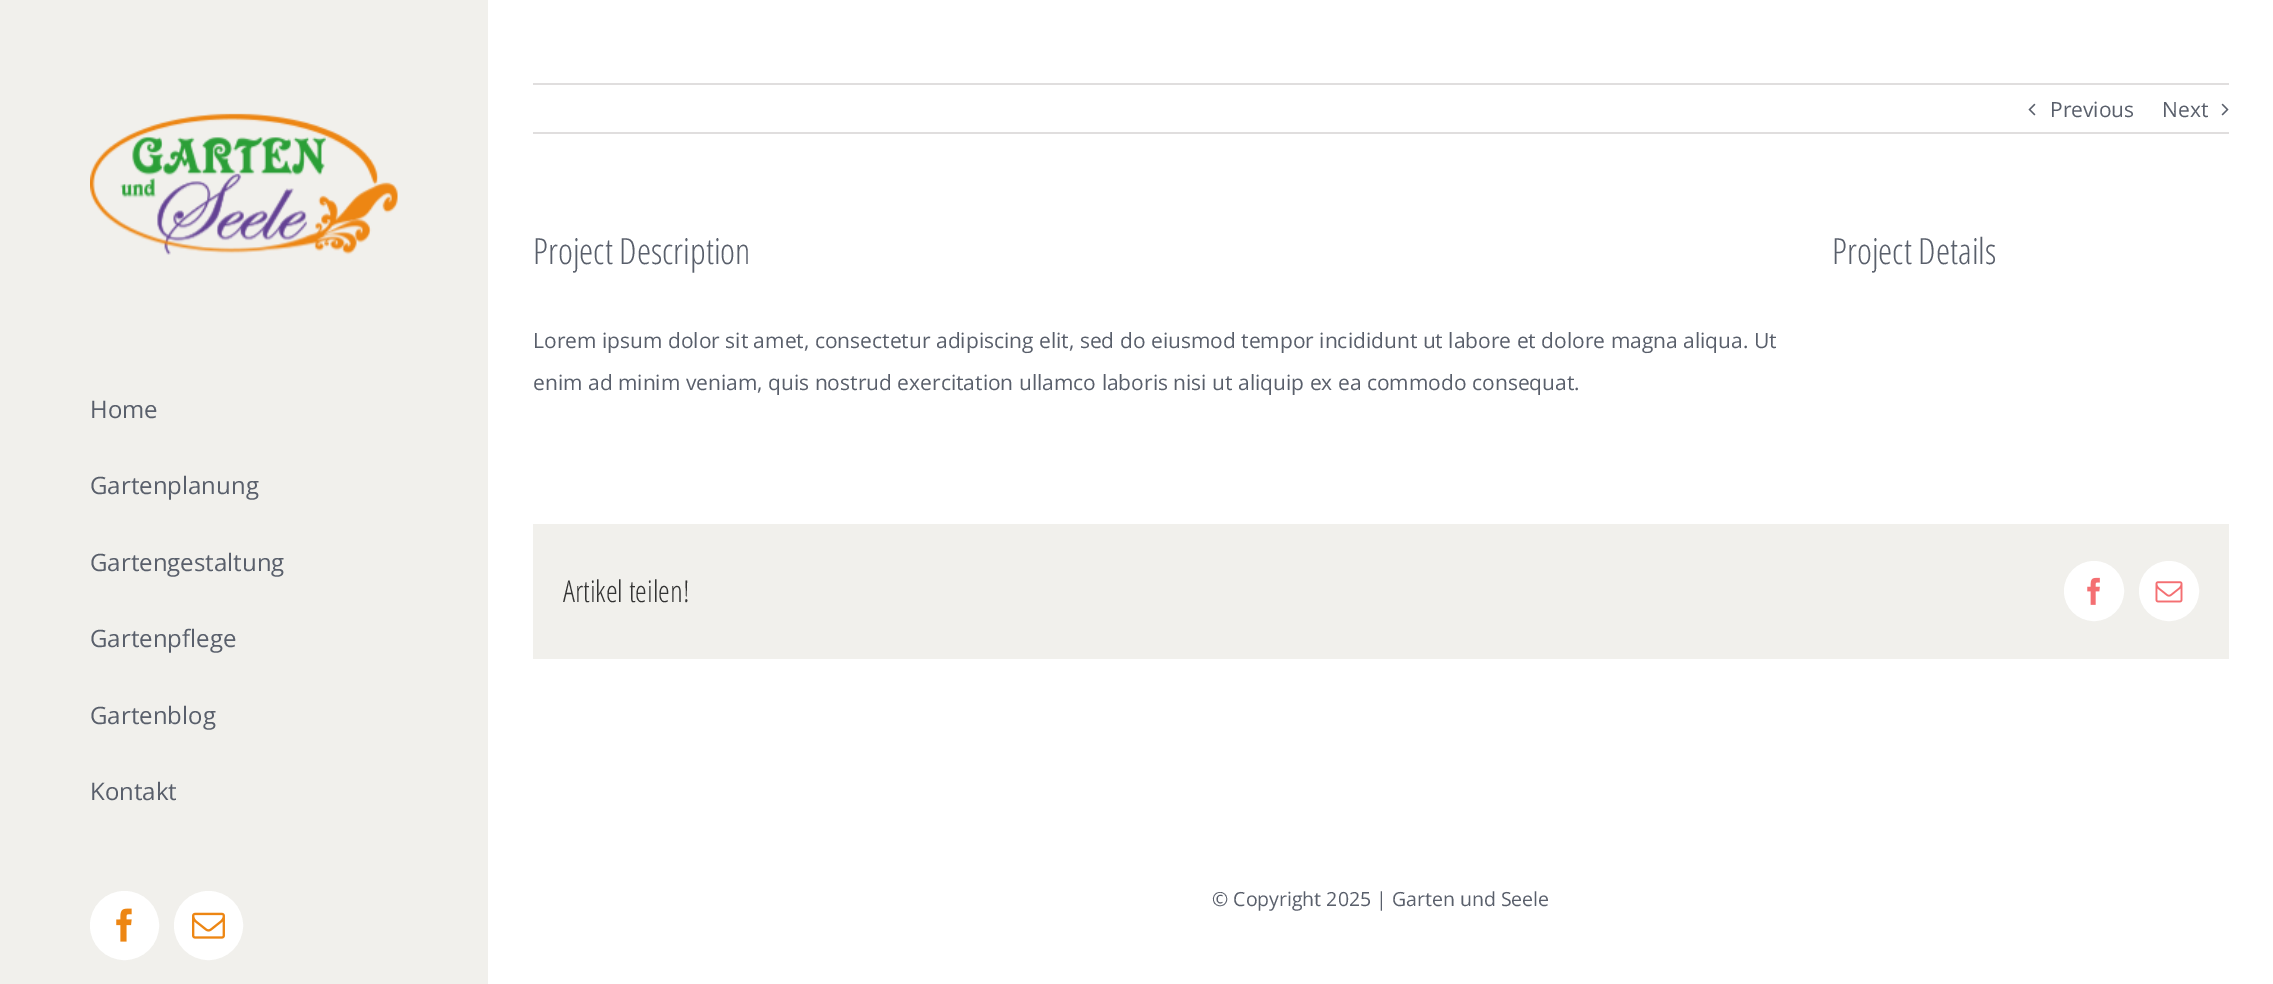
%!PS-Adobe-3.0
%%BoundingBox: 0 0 2273 984
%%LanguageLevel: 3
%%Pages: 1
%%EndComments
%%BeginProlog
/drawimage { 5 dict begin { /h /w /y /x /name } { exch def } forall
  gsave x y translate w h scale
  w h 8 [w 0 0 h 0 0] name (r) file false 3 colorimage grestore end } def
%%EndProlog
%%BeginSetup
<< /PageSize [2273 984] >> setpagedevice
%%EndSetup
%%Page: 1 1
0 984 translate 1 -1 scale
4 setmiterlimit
1 setgray
0 0 2273 984 rectfill
0.945 0.941 0.925 setrgbcolor
0 0 488 984 rectfill
(images/1.raw) 90 113 308 142 drawimage
1 setgray
newpath 124.5 925.5 33.5 0 360 arc closepath gsave fill grestore
2 setlinewidth
stroke
(images/2.raw) 116 908 16 34 drawimage
newpath 208.5 925.5 33.5 0 360 arc closepath gsave fill grestore
stroke
(images/3.raw) 192 912 33 27 drawimage
0.878 0.871 0.871 setrgbcolor
533 83 1696 2 rectfill
533 132 1696 2 rectfill
(images/4.raw) 2028 103 8 13 drawimage
(images/5.raw) 2221 103 8 13 drawimage
0.945 0.941 0.925 setrgbcolor
533 524 1696 135 rectfill
1 setgray
newpath 2094 591 29 0 360 arc closepath gsave fill grestore
stroke
(images/6.raw) 2087 577 13 28 drawimage
newpath 2169 591 29 0 360 arc closepath gsave fill grestore
stroke
(images/7.raw) 2155 581 28 22 drawimage
/OpenSans-Regular [24 0 0 -24 0 0] selectfont
0.349 0.373 0.42 setrgbcolor
90 418 moveto (Home) show
90 494 moveto (Gartenplanung) show
90 571 moveto (Gartengestaltung) show
90 647 moveto (Gartenpflege) show
90 724 moveto (Gartenblog) show
90 800 moveto (Kontakt) show
/OpenSans-Regular [21 0 0 -21 0 0] selectfont
2050 117 moveto (Previous) show
2162 117 moveto (Next) show
/OpenSansCondensed-Light [36 0 0 -36 0 0] selectfont
533 264 moveto (Project Description) show
/OpenSans-Regular [21 0 0 -21 0 0] selectfont
533 348 moveto (Lorem ipsum dolor sit amet, consectetur adipiscing elit, sed do eiusmod tempor incididunt ut labore et dolore magna aliqua. Ut) show
533 390 moveto (enim ad minim veniam, quis nostrud exercitation ullamco laboris nisi ut aliquip ex ea commodo consequat.) show
/OpenSansCondensed-Light [36 0 0 -36 0 0] selectfont
1832 264 moveto (Project Details) show
/OpenSansCondensed-Light [30 0 0 -30 0 0] selectfont
0.2 setgray
563 602 moveto (Artikel teilen!) show
/OpenSans-Regular [19.5 0 0 -19.5 0 0] selectfont
0.349 0.373 0.42 setrgbcolor
1212 906 moveto (© Copyright 2025 | Garten und Seele) show
showpage
%%EOF
